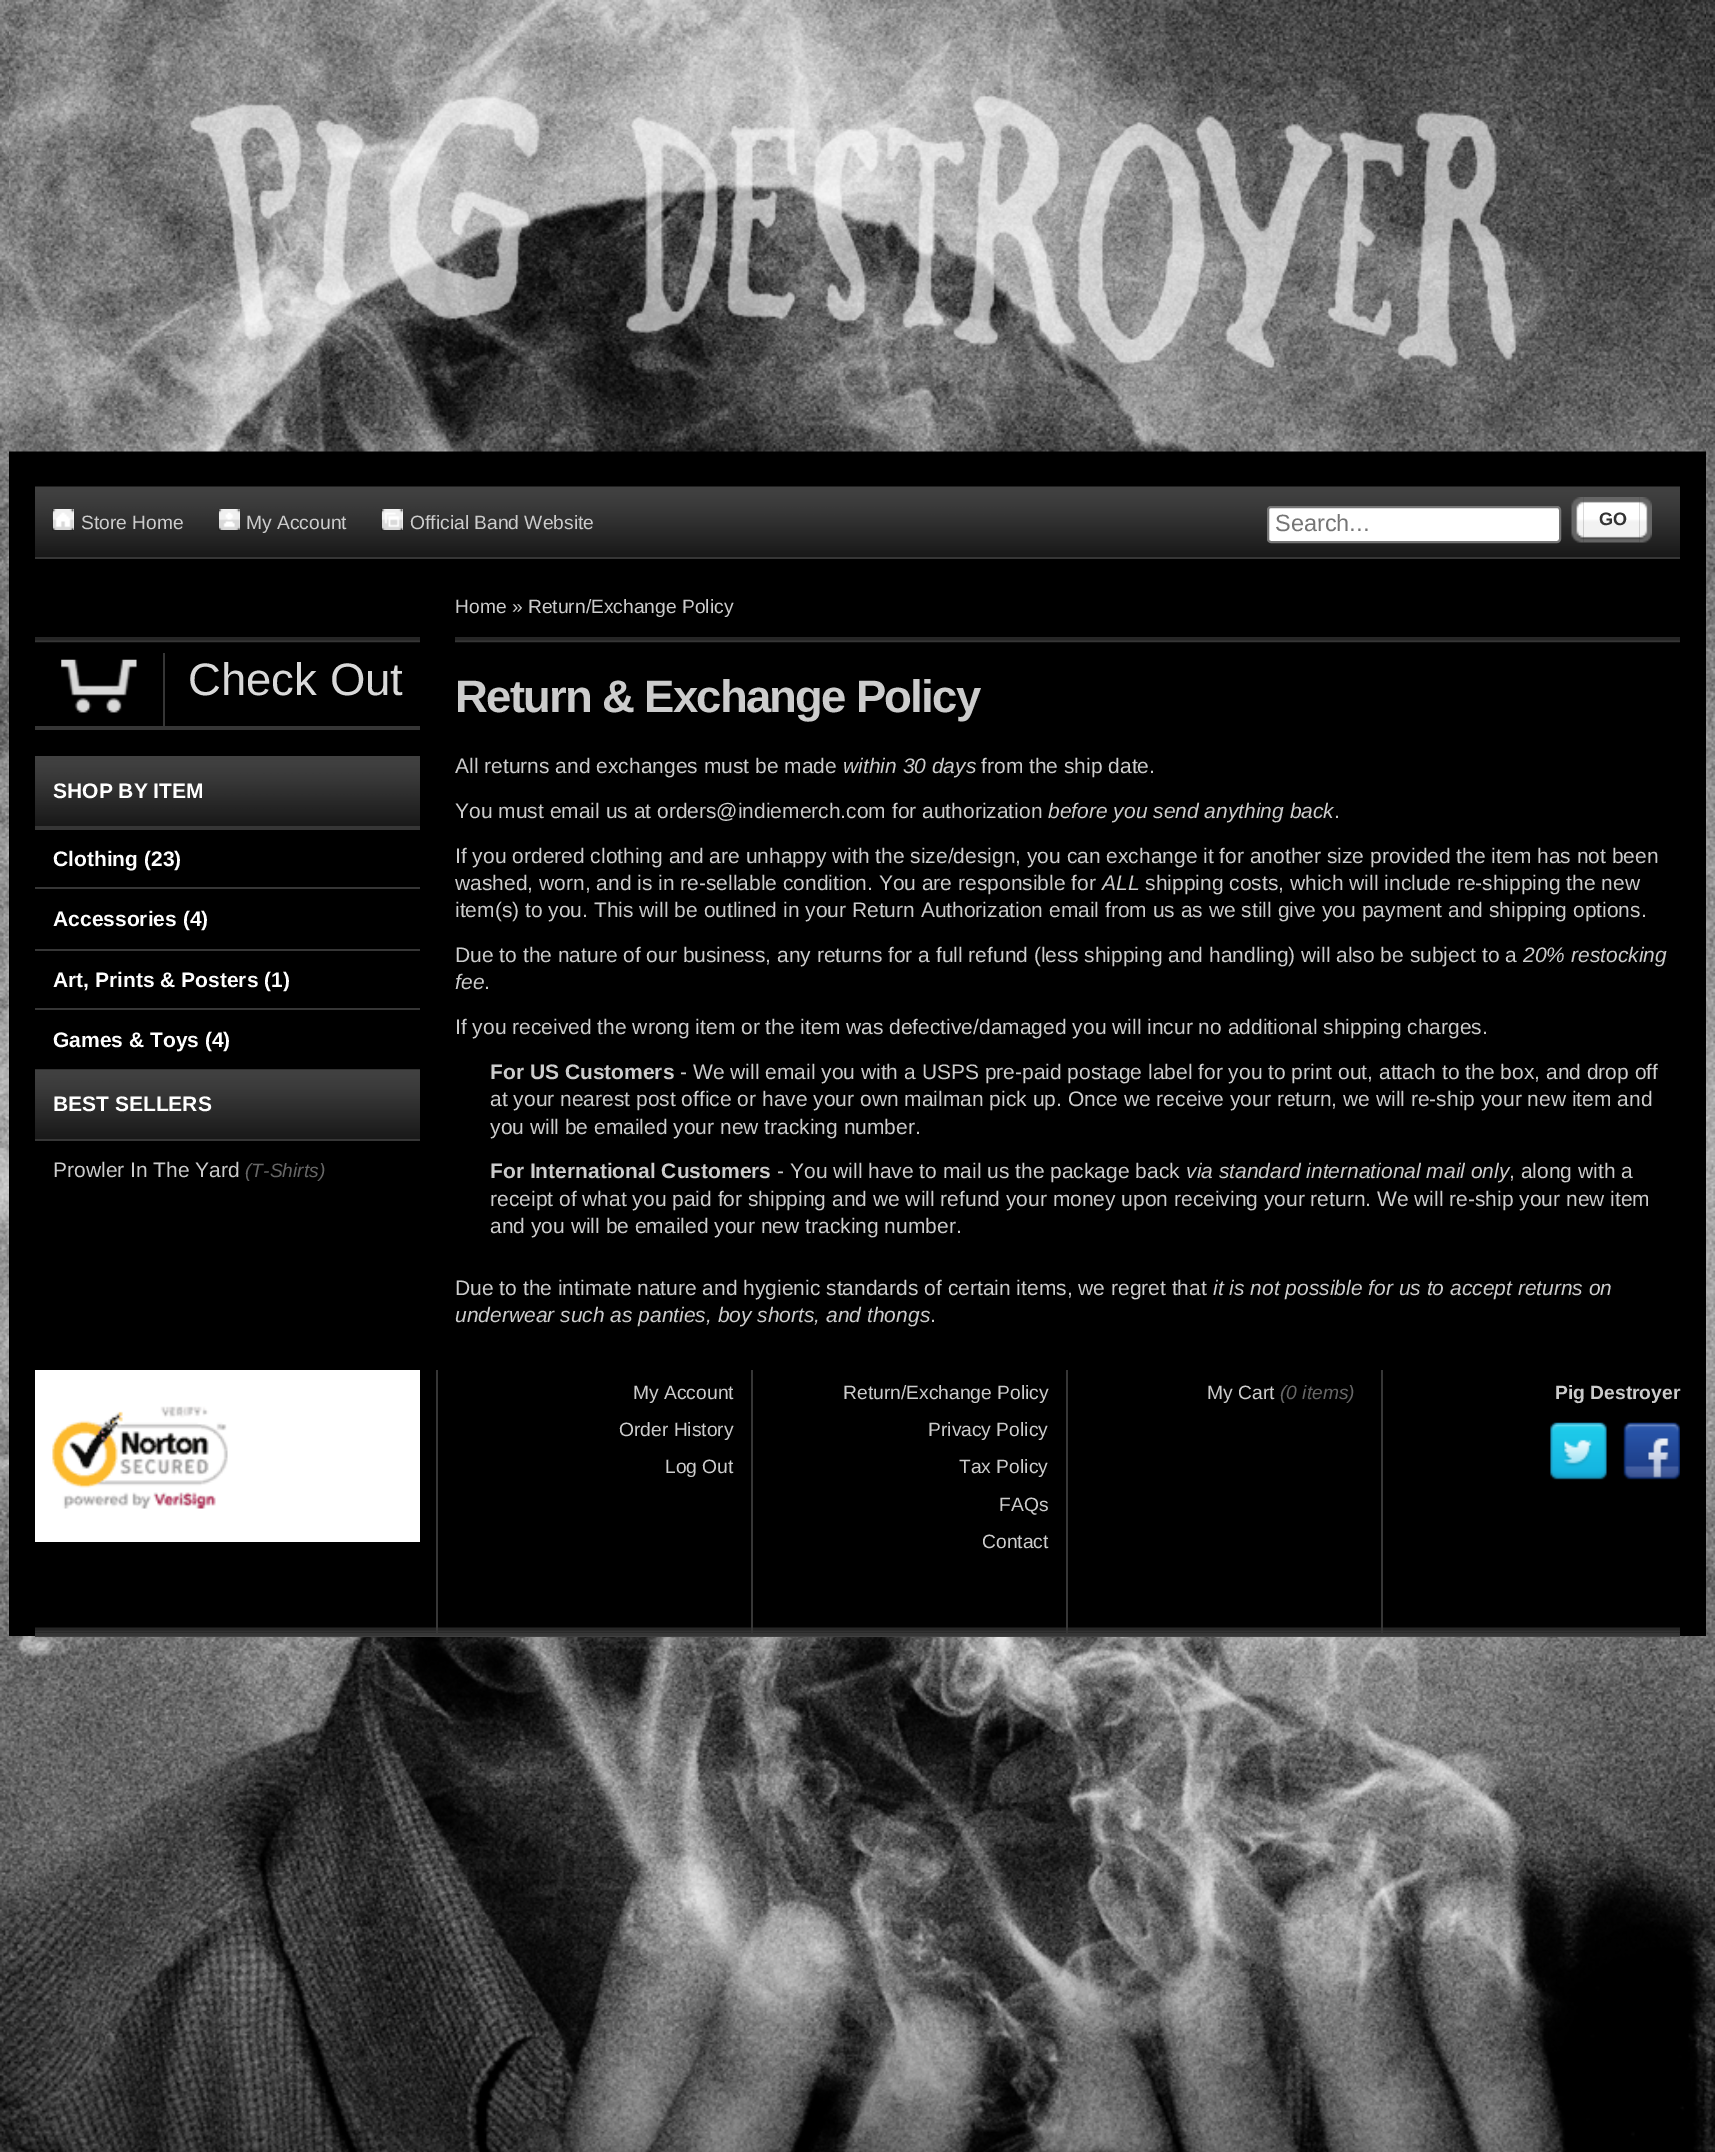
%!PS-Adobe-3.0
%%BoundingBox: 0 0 1715 2152
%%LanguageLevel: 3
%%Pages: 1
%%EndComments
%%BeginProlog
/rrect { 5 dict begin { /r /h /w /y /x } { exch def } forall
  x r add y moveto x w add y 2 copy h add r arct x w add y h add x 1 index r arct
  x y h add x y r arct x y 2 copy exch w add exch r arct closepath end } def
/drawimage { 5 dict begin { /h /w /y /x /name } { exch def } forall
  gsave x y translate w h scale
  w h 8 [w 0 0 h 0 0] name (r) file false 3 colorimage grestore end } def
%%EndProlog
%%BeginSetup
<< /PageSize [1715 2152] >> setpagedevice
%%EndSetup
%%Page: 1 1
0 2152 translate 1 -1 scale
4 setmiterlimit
1 setgray
0 0 1715 2152 rectfill
(images/1.raw) 0 0 1715 2152 drawimage
0 setgray
9 451 1697 1185 rectfill
(images/2.raw) 8 0 1698 452 drawimage
(images/3.raw) 35 486 1645 71 drawimage
0.212 setgray
35 557 1645 2 rectfill
1 setgray
53 509 21 21 rectfill
(images/4.raw) 52 509 22 22 drawimage
219 509 21 21 rectfill
(images/5.raw) 218 509 22 22 drawimage
382 509 21 21 rectfill
(images/6.raw) 381 509 22 22 drawimage
1268 507 292 35 3 rrect gsave fill grestore
0.463 setgray
2 setlinewidth
stroke
(images/7.raw) 1571 497 13 46 drawimage
(images/8.raw) 1583 497 57 46 drawimage
(images/9.raw) 1639 497 13 46 drawimage
(images/10.raw) 35 637 385 6 drawimage
0.212 setgray
35 726 385 4 rectfill
(images/11.raw) 61 659 76 54 drawimage
163 653 2 73 rectfill
(images/12.raw) 35 756 385 70 drawimage
35 826 385 4 rectfill
35 887 385 2 rectfill
35 949 385 2 rectfill
35 1008 385 2 rectfill
(images/13.raw) 35 1069 385 70 drawimage
35 1139 385 2 rectfill
(images/14.raw) 455 637 1225 6 drawimage
(images/15.raw) 35 1627 1645 6 drawimage
436 1370 2 263 rectfill
1 setgray
35 1370 385 172 rectfill
(images/16.raw) 52 1406 176 103 drawimage
0.212 setgray
751 1370 2 263 rectfill
1066 1370 2 263 rectfill
1381 1370 2 263 rectfill
(images/17.raw) 1550 1422 57 58 drawimage
(images/18.raw) 1623 1422 57 58 drawimage
0.255 setgray
35 1636 1645 1 rectfill
0.212 setgray
35 1633 1645 3 rectfill
/LiberationSans-Regular [19.25 0 0 -19.25 0 0] selectfont
0.8 setgray
81 529 moveto (Store Home) show
246 529 moveto (My Account) show
410 529 moveto (Official Band Website) show
/LiberationSans-Regular [23.5 0 0 -23.5 0 0] selectfont
0.459 setgray
1275 531 moveto (Search...) show
/LiberationSans-Bold [18 0 0 -18 0 0] selectfont
0.2 setgray
1599 525 moveto (GO) show
/LiberationSans-Regular [45.5 0 0 -45.5 0 0] selectfont
0.851 setgray
188 695 moveto (Check Out) show
/LiberationSans-Bold [21 0 0 -21 0 0] selectfont
1 setgray
53 798 moveto (SHOP BY ITEM) show
53 866 moveto (Clothing \(23\)) show
53 926 moveto (Accessories \(4\)) show
53 987 moveto (Art, Prints & Posters \(1\)) show
53 1047 moveto (Games & Toys \(4\)) show
53 1111 moveto (BEST SELLERS) show
/LiberationSans-Regular [21 0 0 -21 0 0] selectfont
0.8 setgray
53 1177 moveto (Prowler In The Yard) show
/LiberationSans-Italic [19.25 0 0 -19.25 0 0] selectfont
0.4 setgray
245 1177 moveto (\(T-Shirts\)) show
/LiberationSans-Regular [19.25 0 0 -19.25 0 0] selectfont
0.8 setgray
455 613 moveto (Home » Return/Exchange Policy) show
/LiberationSans-Bold [45.5 0 0 -45.5 0 0] selectfont
455 712 moveto -1.75 0 (Return & Exchange Policy) ashow
/LiberationSans-Regular [21 0 0 -21 0 0] selectfont
455 773 moveto (All returns and exchanges must be made) show
/LiberationSans-Italic [21 0 0 -21 0 0] selectfont
843 773 moveto (within 30 days) show
/LiberationSans-Regular [21 0 0 -21 0 0] selectfont
981 773 moveto (from the ship date.) show
455 818 moveto (You must email us at orders@indiemerch.com for authorization) show
/LiberationSans-Italic [21 0 0 -21 0 0] selectfont
1048 818 moveto (before you send anything back) show
/LiberationSans-Regular [21 0 0 -21 0 0] selectfont
1334 818 moveto (.) show
455 863 moveto (If you ordered clothing and are unhappy with the size/design, you can exchange it for another size provided the item has not been) show
455 890 moveto (washed, worn, and is in re-sellable condition. You are responsible for) show
/LiberationSans-Italic [21 0 0 -21 0 0] selectfont
1102 890 moveto (ALL) show
/LiberationSans-Regular [21 0 0 -21 0 0] selectfont
1145 890 moveto (shipping costs, which will include re-shipping the new) show
455 917 moveto (item\(s\) to you. This will be outlined in your Return Authorization email from us as we still give you payment and shipping options.) show
455 962 moveto (Due to the nature of our business, any returns for a full refund \(less shipping and handling\) will also be subject to a) show
/LiberationSans-Italic [21 0 0 -21 0 0] selectfont
1523 962 moveto (20% restocking) show
455 989 moveto (fee) show
/LiberationSans-Regular [21 0 0 -21 0 0] selectfont
484 989 moveto (.) show
455 1034 moveto (If you received the wrong item or the item was defective/damaged you will incur no additional shipping charges.) show
/LiberationSans-Bold [21 0 0 -21 0 0] selectfont
490 1079 moveto (For US Customers) show
/LiberationSans-Regular [21 0 0 -21 0 0] selectfont
680 1079 moveto (- We will email you with a USPS pre-paid postage label for you to print out, attach to the box, and drop off) show
490 1106 moveto (at your nearest post office or have your own mailman pick up. Once we receive your return, we will re-ship your new item and) show
490 1134 moveto (you will be emailed your new tracking number.) show
/LiberationSans-Bold [21 0 0 -21 0 0] selectfont
490 1178 moveto (For International Customers) show
/LiberationSans-Regular [21 0 0 -21 0 0] selectfont
777 1178 moveto (- You will have to mail us the package back) show
/LiberationSans-Italic [21 0 0 -21 0 0] selectfont
1186 1178 moveto (via standard international mail only) show
/LiberationSans-Regular [21 0 0 -21 0 0] selectfont
1509 1178 moveto (, along with a) show
490 1206 moveto (receipt of what you paid for shipping and we will refund your money upon receiving your return. We will re-ship your new item) show
490 1233 moveto (and you will be emailed your new tracking number.) show
455 1295 moveto (Due to the intimate nature and hygienic standards of certain items, we regret that) show
/LiberationSans-Italic [21 0 0 -21 0 0] selectfont
1213 1295 moveto (it is not possible for us to accept returns on) show
455 1322 moveto (underwear such as panties, boy shorts, and thongs) show
/LiberationSans-Regular [21 0 0 -21 0 0] selectfont
930 1322 moveto (.) show
/LiberationSans-Regular [19.25 0 0 -19.25 0 0] selectfont
633 1399 moveto (My Account) show
619 1436 moveto (Order History) show
665 1473 moveto (Log Out) show
843 1399 moveto (Return/Exchange Policy) show
928 1436 moveto (Privacy Policy) show
959 1473 moveto (Tax Policy) show
999 1511 moveto (FAQs) show
982 1548 moveto (Contact) show
1207 1399 moveto (My Cart) show
/LiberationSans-Italic [19.25 0 0 -19.25 0 0] selectfont
0.4 setgray
1280 1399 moveto (\(0 items\)) show
/LiberationSans-Bold [19.25 0 0 -19.25 0 0] selectfont
0.8 setgray
1555 1399 moveto (Pig Destroyer) show
showpage
%%EOF
